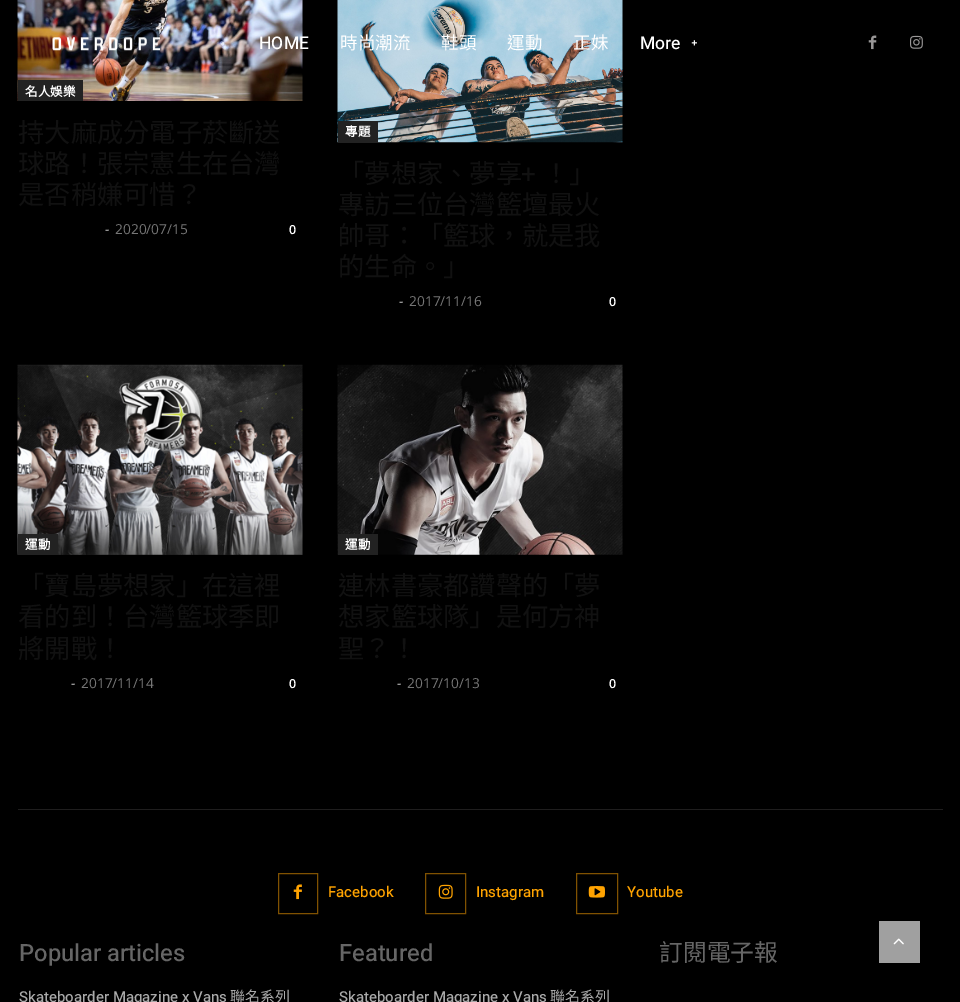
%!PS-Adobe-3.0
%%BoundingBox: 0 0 960 1002
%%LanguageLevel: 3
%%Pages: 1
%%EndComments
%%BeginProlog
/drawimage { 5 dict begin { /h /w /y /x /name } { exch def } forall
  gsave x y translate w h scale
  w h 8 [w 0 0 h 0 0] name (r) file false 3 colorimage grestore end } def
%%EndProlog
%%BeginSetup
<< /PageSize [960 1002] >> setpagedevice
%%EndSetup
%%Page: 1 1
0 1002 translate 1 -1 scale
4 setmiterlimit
0 setgray
0 0 960 1002 rectfill
(images/5.raw) 17 0 286 101 drawimage
(images/1.raw) 52 37 108 14 drawimage
(images/2.raw) 691 40 6 6 drawimage
(images/3.raw) 868 35 9 15 drawimage
(images/4.raw) 910 35 13 14 drawimage
0.133 setgray
18 80 65 21 rectfill
(images/6.raw) 337 0 286 143 drawimage
338 121 40 22 rectfill
(images/7.raw) 17 364 286 191 drawimage
18 534 40 21 rectfill
(images/8.raw) 337 364 286 191 drawimage
338 534 40 21 rectfill
0.122 0.118 0.118 setrgbcolor
18 809 925 1 rectfill
0.502 0.322 0.004 setrgbcolor
278.5 873.5 39 40 rectstroke
(images/9.raw) 293 884 9 16 drawimage
425.5 873.5 40 40 rectstroke
(images/10.raw) 438 884 15 15 drawimage
576.5 873.5 41 40 rectstroke
(images/11.raw) 588 886 17 12 drawimage
0.627 setgray
879 921 41 42 rectfill
(images/12.raw) 893 938 11 7 drawimage
/Heebo-Medium [17.5 0 0 -17.5 0 0] selectfont
1 setgray
259 49 moveto (HOME) show
/NotoSansCJKTC-Regular [17.5 0 0 -17.5 0 0] selectfont
340 49 moveto (時尚潮流) show
441 49 moveto (鞋頭) show
507 49 moveto (運動) show
573 49 moveto (正妹) show
/Heebo-Medium [17.5 0 0 -17.5 0 0] selectfont
640 49 moveto (More) show
/NotoSansCJKTC-Bold [12.5 0 0 -12.5 0 0] selectfont
25 96 moveto (名人娛樂) show
/NotoSansCJKTC-Regular [26.25 0 0 -26.25 0 0] selectfont
0.067 setgray
18 142 moveto (持大麻成分電子菸斷送) show
18 173 moveto (球路！張宗憲生在台灣) show
18 204 moveto (是否稍嫌可惜？) show
/OpenSans-Regular [13.75 0 0 -13.75 0 0] selectfont
0.8 setgray
105 234 moveto (-) show
0.463 setgray
115 234 moveto (2020/07/15) show
/OpenSans-SemiBold [12.5 0 0 -12.5 0 0] selectfont
1 setgray
289 234 moveto (0) show
/NotoSansCJKTC-Bold [12.5 0 0 -12.5 0 0] selectfont
345 136 moveto (專題) show
/NotoSansCJKTC-Regular [26.25 0 0 -26.25 0 0] selectfont
0.067 setgray
338 183 moveto (「夢想家、夢享) show
/Roboto-Regular [26.25 0 0 -26.25 0 0] selectfont
521 183 moveto (+) show
/NotoSansCJKTC-Regular [26.25 0 0 -26.25 0 0] selectfont
543 183 moveto (！」) show
338 214 moveto (專訪三位台灣籃壇最火) show
338 245 moveto (帥哥：「籃球，就是我) show
338 276 moveto (的生命。」) show
/OpenSans-Regular [13.75 0 0 -13.75 0 0] selectfont
0.8 setgray
399 306 moveto (-) show
0.463 setgray
409 306 moveto (2017/11/16) show
/OpenSans-SemiBold [12.5 0 0 -12.5 0 0] selectfont
1 setgray
609 306 moveto (0) show
/NotoSansCJKTC-Bold [12.5 0 0 -12.5 0 0] selectfont
25 549 moveto (運動) show
/NotoSansCJKTC-Regular [26.25 0 0 -26.25 0 0] selectfont
0.067 setgray
18 595 moveto (「寶島夢想家」在這裡) show
18 626 moveto (看的到！台灣籃球季即) show
18 658 moveto (將開戰！) show
/OpenSans-Regular [13.75 0 0 -13.75 0 0] selectfont
0.8 setgray
71 688 moveto (-) show
0.463 setgray
81 688 moveto (2017/11/14) show
/OpenSans-SemiBold [12.5 0 0 -12.5 0 0] selectfont
1 setgray
289 688 moveto (0) show
/NotoSansCJKTC-Bold [12.5 0 0 -12.5 0 0] selectfont
345 549 moveto (運動) show
/NotoSansCJKTC-Regular [26.25 0 0 -26.25 0 0] selectfont
0.067 setgray
338 595 moveto (連林書豪都讚聲的「夢) show
338 626 moveto (想家籃球隊」是何方神) show
338 658 moveto (聖？！) show
/OpenSans-Regular [13.75 0 0 -13.75 0 0] selectfont
0.8 setgray
397 688 moveto (-) show
0.463 setgray
407 688 moveto (2017/10/13) show
/OpenSans-SemiBold [12.5 0 0 -12.5 0 0] selectfont
1 setgray
609 688 moveto (0) show
/Heebo-Medium [15 0 0 -15 0 0] selectfont
1 0.639 0.004 setrgbcolor
328 897 moveto (Facebook) show
476 897 moveto (Instagram) show
627 897 moveto (Youtube) show
/Heebo-Medium [23.75 0 0 -23.75 0 0] selectfont
0.4 setgray
19 961 moveto (Popular articles) show
/Heebo-Medium [15 0 0 -15 0 0] selectfont
0.667 setgray
19 1002 moveto (Skateboarder Magazine x Vans) show
/NotoSansCJKTC-Regular [15 0 0 -15 0 0] selectfont
230 1002 moveto (聯名系列) show
/Heebo-Medium [23.75 0 0 -23.75 0 0] selectfont
0.4 setgray
339 961 moveto (Featured) show
/Heebo-Medium [15 0 0 -15 0 0] selectfont
0.667 setgray
339 1002 moveto (Skateboarder Magazine x Vans) show
/NotoSansCJKTC-Regular [15 0 0 -15 0 0] selectfont
550 1002 moveto (聯名系列) show
/NotoSansCJKTC-Regular [23.75 0 0 -23.75 0 0] selectfont
0.4 setgray
659 961 moveto (訂閱電子報) show
showpage
%%EOF
